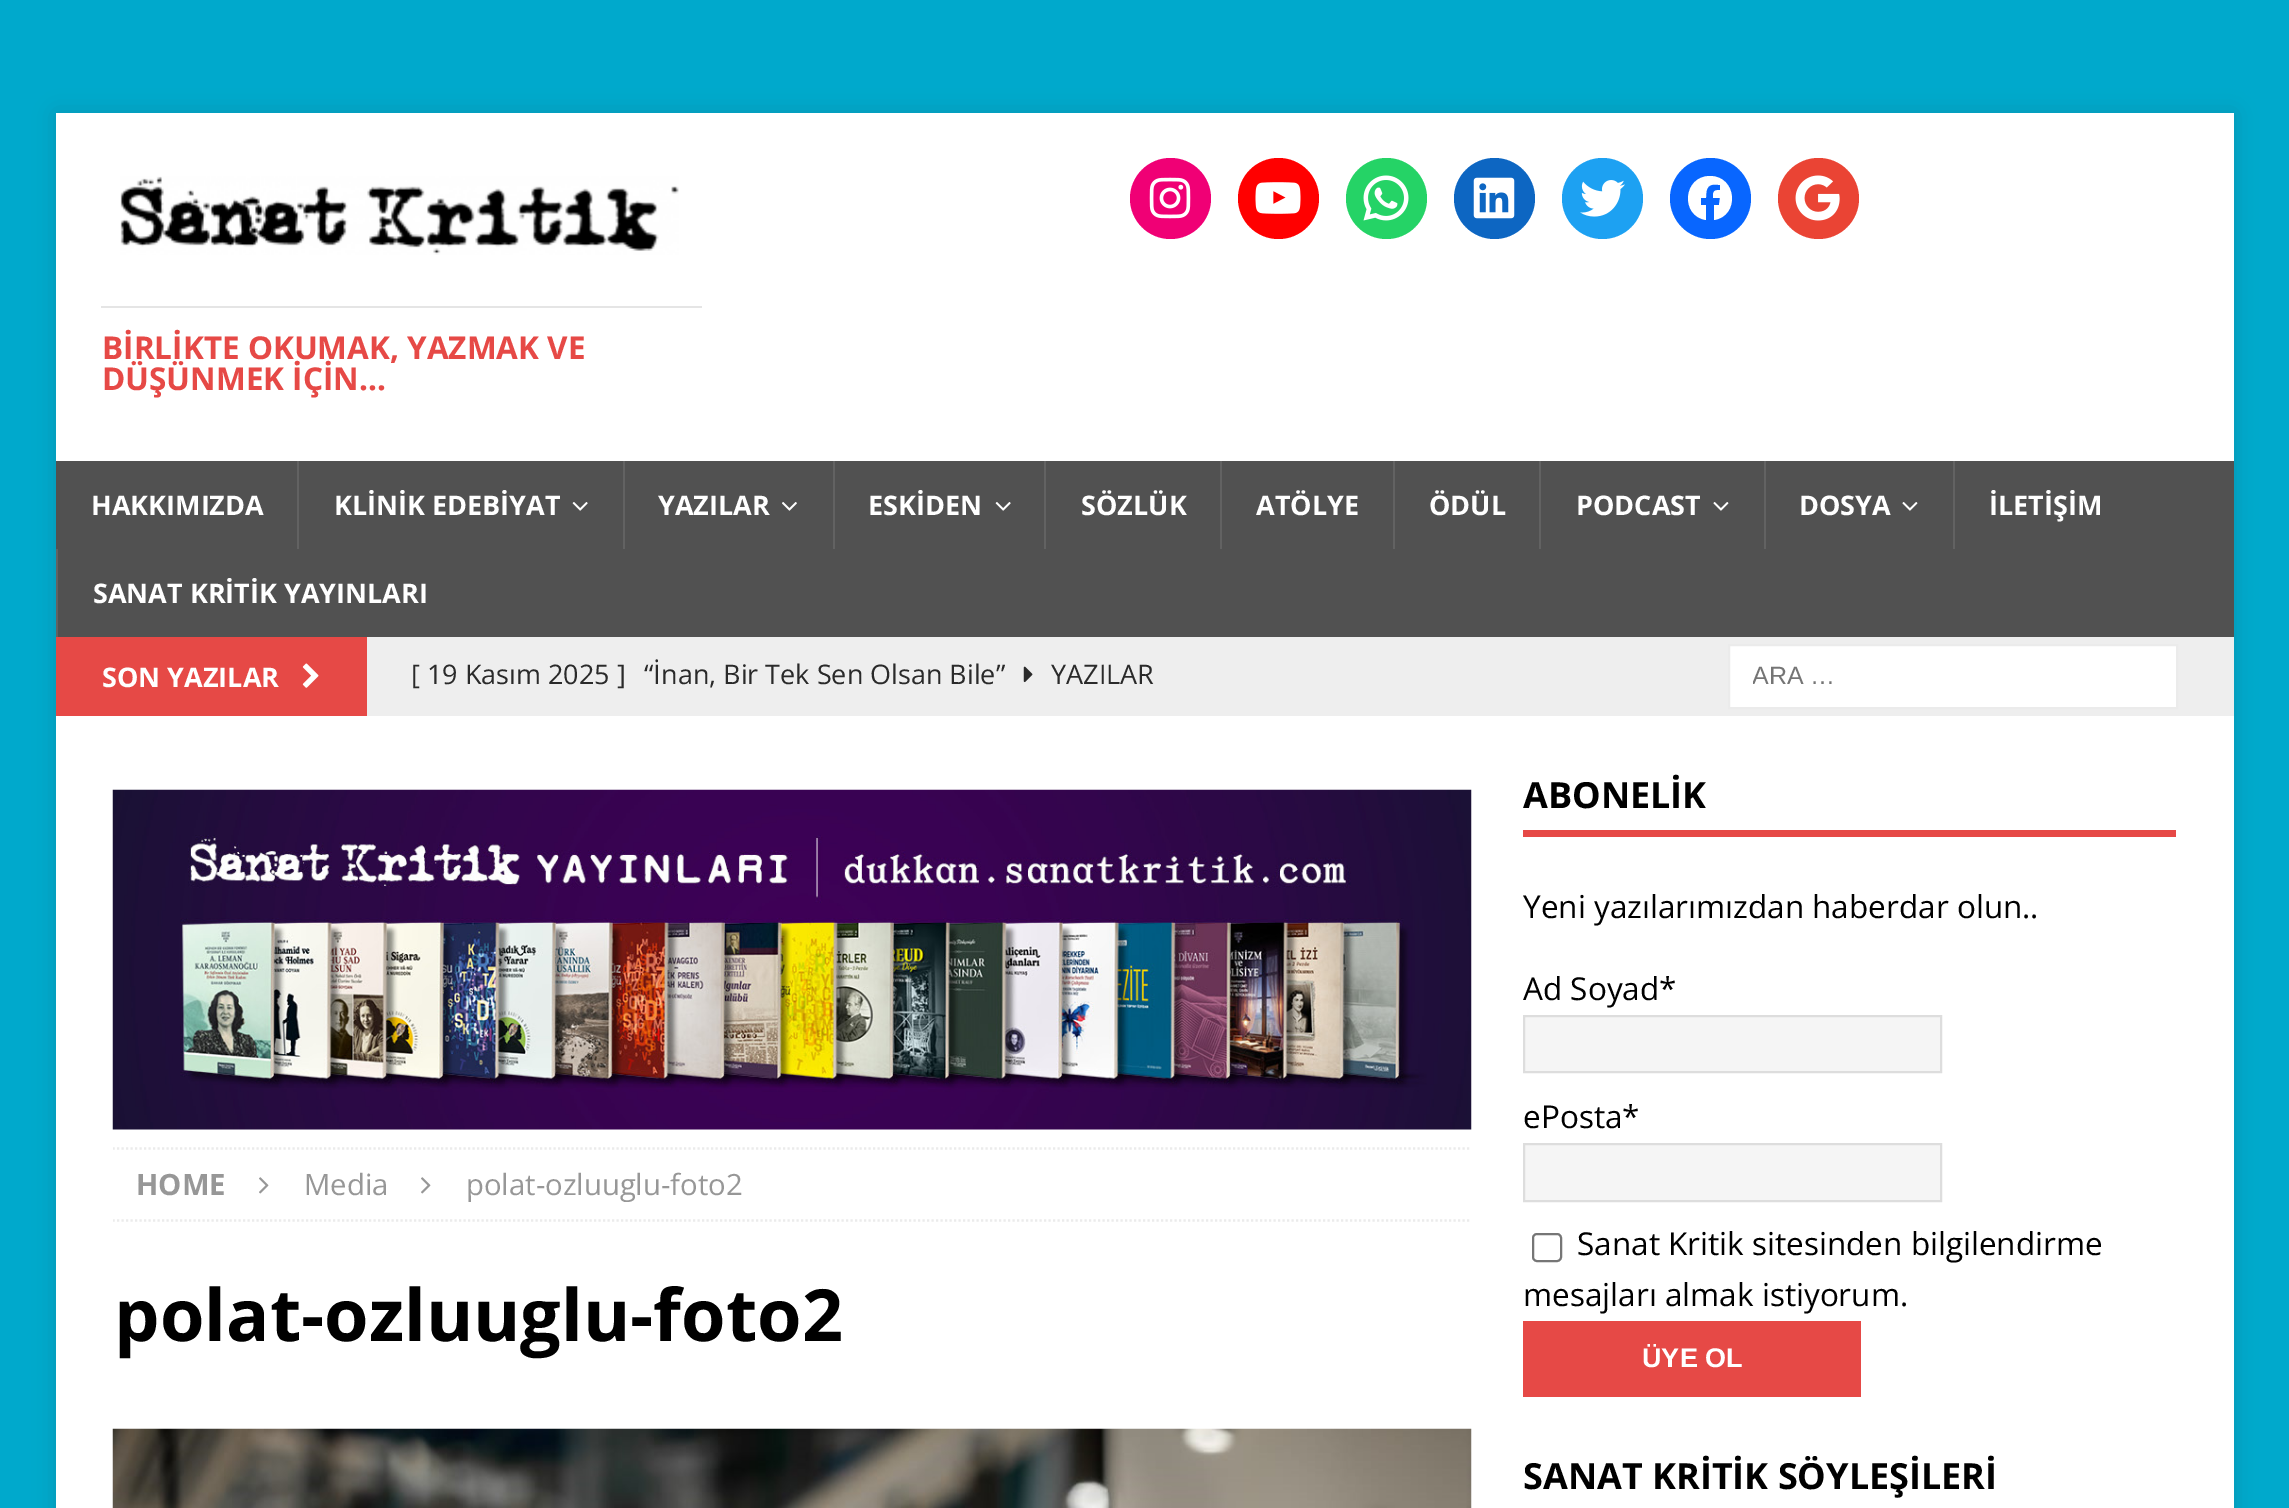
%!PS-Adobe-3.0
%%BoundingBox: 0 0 2289 1508
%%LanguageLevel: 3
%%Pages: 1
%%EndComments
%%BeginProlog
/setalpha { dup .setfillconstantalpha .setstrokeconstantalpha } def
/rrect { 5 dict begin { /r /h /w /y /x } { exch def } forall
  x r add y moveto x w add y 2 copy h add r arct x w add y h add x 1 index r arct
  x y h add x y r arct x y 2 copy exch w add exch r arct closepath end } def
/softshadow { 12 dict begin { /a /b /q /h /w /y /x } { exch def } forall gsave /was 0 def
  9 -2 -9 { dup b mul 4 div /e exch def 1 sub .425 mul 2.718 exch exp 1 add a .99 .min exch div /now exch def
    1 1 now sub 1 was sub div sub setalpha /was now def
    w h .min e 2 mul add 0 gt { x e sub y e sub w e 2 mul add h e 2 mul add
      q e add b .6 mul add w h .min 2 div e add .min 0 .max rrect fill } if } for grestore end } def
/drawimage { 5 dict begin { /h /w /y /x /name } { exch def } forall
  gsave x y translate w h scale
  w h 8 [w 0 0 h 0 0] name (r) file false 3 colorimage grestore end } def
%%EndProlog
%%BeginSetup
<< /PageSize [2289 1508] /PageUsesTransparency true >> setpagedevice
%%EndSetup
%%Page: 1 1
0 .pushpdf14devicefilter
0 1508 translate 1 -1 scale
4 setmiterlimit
0 0.663 0.8 setrgbcolor
0 0 2289 1508 rectfill
0.196 setgray
56 113 2178 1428 0 11 0.17 softshadow
1 setgray
56 113 2178 348 rectfill
0.941 0 0.459 setrgbcolor
newpath 1170.5 198.5 40.5 0 360 arc closepath fill
(images/1.raw) 1149 177 42 42 drawimage
1 0 0 setrgbcolor
newpath 1278.5 198.5 40.5 0 360 arc closepath fill
(images/2.raw) 1255 182 46 32 drawimage
0.145 0.827 0.4 setrgbcolor
newpath 1386.5 198.5 40.5 0 360 arc closepath fill
(images/3.raw) 1363 175 46 46 drawimage
0.051 0.4 0.761 setrgbcolor
newpath 1494.5 198.5 40.5 0 360 arc closepath fill
(images/4.raw) 1473 177 42 42 drawimage
0.114 0.631 0.949 setrgbcolor
newpath 1602.5 198.5 40.5 0 360 arc closepath fill
(images/5.raw) 1580 180 45 37 drawimage
0.031 0.4 1 setrgbcolor
newpath 1710.5 198.5 40.5 0 360 arc closepath fill
1 setgray
newpath 1710 176 moveto 1683 176 1680 216 1706 220 curveto 1706 205 lineto 1701 205 lineto 1701 198 lineto 1706 198 lineto 1706 187 1708 183 1720 185 curveto 1720 190 lineto 1713 190 1713 192 1713 198 curveto 1720 198 lineto 1719 205 lineto 1714 205 lineto 1714 220 lineto 1740 216 1737 176 1710 176 curveto closepath fill
0.918 0.267 0.204 setrgbcolor
newpath 1818.5 198.5 40.5 0 360 arc closepath fill
(images/6.raw) 1795 175 45 46 drawimage
(images/7.raw) 120 176 559 79 drawimage
0.898 setgray
101 306 601 2 rectfill
0.318 setgray
56 461 2178 176 rectfill
0.384 setgray
297 461 2 88 rectfill
(images/8.raw) 572 502 16 9 drawimage
623 461 2 88 rectfill
(images/9.raw) 782 502 15 9 drawimage
833 461 2 88 rectfill
(images/8.raw) 995 502 16 9 drawimage
1044 461 2 88 rectfill
1220 461 2 88 rectfill
1393 461 2 88 rectfill
1539 461 2 88 rectfill
(images/10.raw) 1713 502 16 9 drawimage
1764 461 2 88 rectfill
(images/10.raw) 1902 502 16 9 drawimage
1953 461 2 88 rectfill
56 549 2 88 rectfill
0.933 setgray
367 637 1867 79 rectfill
0.902 0.286 0.275 setrgbcolor
56 637 311 79 rectfill
(images/11.raw) 302 663 17 25 drawimage
(images/12.raw) 1023 666 10 17 drawimage
1 setgray
newpath 1729 645 moveto 2177 645 lineto 2177 708 lineto 1729 708 lineto closepath gsave fill grestore
0.922 setgray
2 setlinewidth
stroke
1 setgray
56 716 2178 792 rectfill
(images/13.raw) 112 789 1360 341 drawimage
gsave
113 772 1359 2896 rectclip
0.922 setgray
2.2 setlinewidth
[2.25 2.25] 0 setdash
newpath 112.5 1148.5 moveto 1471.5 1148.5 lineto stroke
newpath 112.5 1220.5 moveto 1471.5 1220.5 lineto stroke
grestore
(images/14.raw) 259 1177 10 17 drawimage
(images/14.raw) 421 1177 10 17 drawimage
(images/15.raw) 112 1428 1360 80 drawimage
0.902 0.286 0.275 setrgbcolor
1523 830 653 7 rectfill
0.961 setgray
newpath 1524 1016 moveto 1941 1016 lineto 1941 1072 lineto 1524 1072 lineto closepath gsave fill grestore
0.867 setgray
stroke
0.961 setgray
newpath 1524 1144 moveto 1941 1144 lineto 1941 1201 lineto 1524 1201 lineto closepath gsave fill grestore
0.867 setgray
stroke
0.463 setgray
1533 1234 28 27 4 rrect stroke
0.902 0.286 0.275 setrgbcolor
1523 1321 338 76 rectfill
/OpenSans-Bold [31.5 0 0 -31.5 0 0] selectfont
102 359 moveto (BİRLİKTE OKUMAK, YAZMAK VE) show
102 390 moveto (DÜŞÜNMEK İÇİN...) show
/OpenSans-Bold [27 0 0 -27 0 0] selectfont
1 setgray
91 515 moveto (HAKKIMIZDA) show
334 515 moveto (KLİNİK EDEBİYAT) show
658 515 moveto (YAZILAR) show
868 515 moveto (ESKİDEN) show
1081 515 moveto (SÖZLÜK) show
1256 515 moveto (ATÖLYE) show
1429 515 moveto (ÖDÜL) show
1576 515 moveto (PODCAST) show
1799 515 moveto (DOSYA) show
1989 515 moveto (İLETİŞİM) show
93 603 moveto (SANAT KRİTİK YAYINLARI) show
102 687 moveto (SON YAZILAR) show
/OpenSans-Regular [27 0 0 -27 0 0] selectfont
0.165 setgray
411 684 moveto ([ 19 Kasım 2025 ]) show
644 684 moveto (“İnan, Bir Tek Sen Olsan Bile”) show
1051 684 moveto (YAZILAR) show
gsave
1753 662 373 27 rectclip
/LiberationSans-Regular [25 0 0 -25 0 0] selectfont
0.459 setgray
1752 684 moveto (ARA …) show
grestore
/OpenSans-Bold [29.25 0 0 -29.25 0 0] selectfont
0.592 setgray
136 1195 moveto (HOME) show
/OpenSans-Regular [29.25 0 0 -29.25 0 0] selectfont
304 1195 moveto (Media) show
466 1195 moveto (polat-ozluuglu-foto2) show
/OpenSans-Bold [72 0 0 -72 0 0] selectfont
0 setgray
114 1341 moveto (polat-ozluuglu-foto2) show
/OpenSans-Bold [36 0 0 -36 0 0] selectfont
1523 808 moveto (ABONELİK) show
/OpenSans-Regular [31.5 0 0 -31.5 0 0] selectfont
1523 918 moveto (Yeni yazılarımızdan haberdar olun..) show
1523 1000 moveto (Ad Soyad*) show
1523 1128 moveto (ePosta*) show
1577 1255 moveto (Sanat Kritik sitesinden bilgilendirme) show
1523 1306 moveto (mesajları almak istiyorum.) show
/LiberationSans-Bold [27 0 0 -27 0 0] selectfont
1 setgray
1642 1367 moveto (ÜYE OL) show
/OpenSans-Bold [36 0 0 -36 0 0] selectfont
0 setgray
1523 1489 moveto (SANAT KRİTİK SÖYLEŞİLERİ) show
.poppdf14devicefilter showpage
%%EOF
